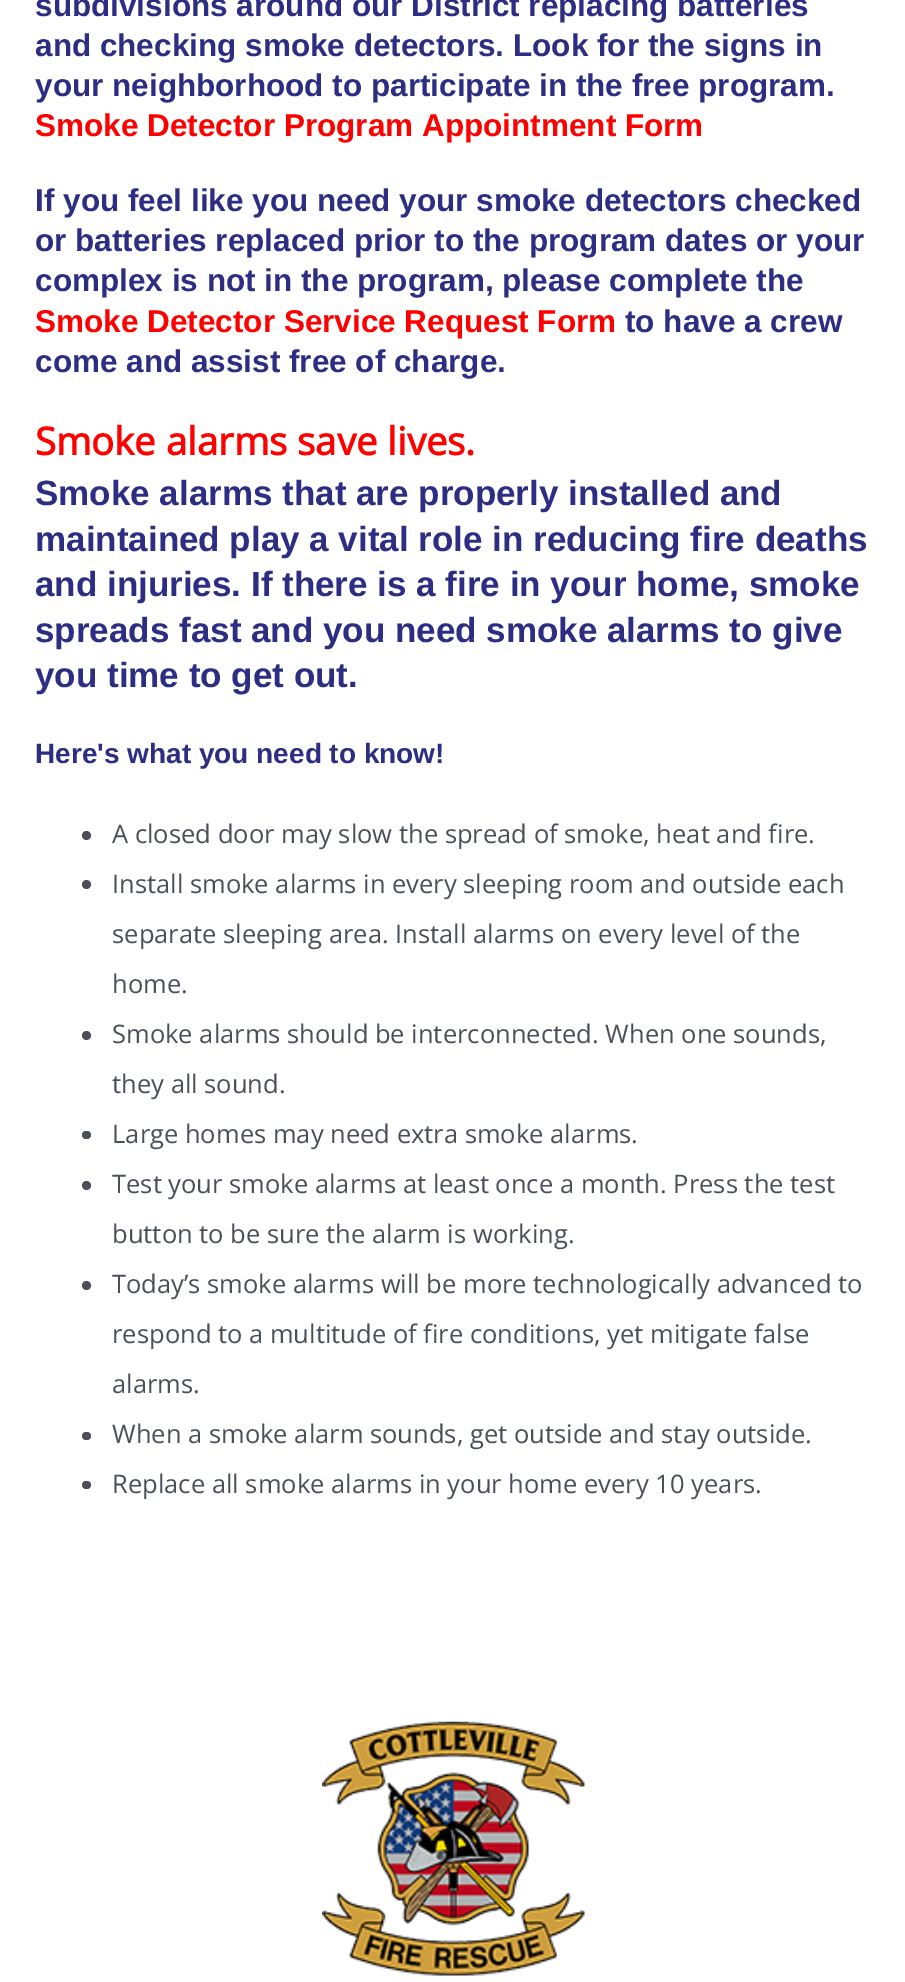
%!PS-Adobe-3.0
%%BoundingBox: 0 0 905 1982
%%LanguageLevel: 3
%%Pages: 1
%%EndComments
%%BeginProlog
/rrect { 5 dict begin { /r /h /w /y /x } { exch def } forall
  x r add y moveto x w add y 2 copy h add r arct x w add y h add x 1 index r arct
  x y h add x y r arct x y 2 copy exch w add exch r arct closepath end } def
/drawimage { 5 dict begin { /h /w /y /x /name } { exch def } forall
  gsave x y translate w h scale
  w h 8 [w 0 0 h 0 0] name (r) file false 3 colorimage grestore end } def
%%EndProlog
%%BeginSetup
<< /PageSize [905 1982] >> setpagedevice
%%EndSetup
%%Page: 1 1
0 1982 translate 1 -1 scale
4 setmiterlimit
1 setgray
0 0 905 1982 rectfill
0.294 0.31 0.345 setrgbcolor
newpath 86.5 835.5 4.5 0 360 arc closepath fill
newpath 86.5 884.5 4.5 0 360 arc closepath fill
newpath 86.5 1035.5 4.5 0 360 arc closepath fill
82 1131 9 8 4 rrect fill
newpath 86.5 1185.5 4.5 0 360 arc closepath fill
newpath 86.5 1285.5 4.5 0 360 arc closepath fill
82 1432 9 8 4 rrect fill
82 1481 9 8 4 rrect fill
(images/1.raw) 322 1721 263 255 drawimage
/LiberationSans-Bold [31.5 0 0 -31.5 0 0] selectfont
0.176 0.18 0.514 setrgbcolor
35 16 moveto (subdivisions around our District replacing batteries) show
35 56 moveto (and checking smoke detectors. Look for the signs in) show
35 96 moveto (your neighborhood to participate in the free program.) show
1 0 0 setrgbcolor
35 136 moveto (Smoke Detector Program Appointment Form) show
0.176 0.18 0.514 setrgbcolor
35 211 moveto (If you feel like you need your smoke detectors checked) show
35 251 moveto (or batteries replaced prior to the program dates or your) show
35 291 moveto (complex is not in the program, please complete the) show
1 0 0 setrgbcolor
35 332 moveto (Smoke Detector Service Request Form) show
0.176 0.18 0.514 setrgbcolor
625 332 moveto (to have a crew) show
35 372 moveto (come and assist free of charge.) show
/OpenSans-Bold [38.25 0 0 -38.25 0 0] selectfont
1 0 0 setrgbcolor
35 455 moveto (Smoke alarms save lives.) show
/LiberationSans-Bold [35 0 0 -35 0 0] selectfont
0.176 0.18 0.514 setrgbcolor
35 505 moveto (Smoke alarms that are properly installed and) show
35 551 moveto (maintained play a vital role in reducing fire deaths) show
35 596 moveto (and injuries. If there is a fire in your home, smoke) show
35 642 moveto (spreads fast and you need smoke alarms to give) show
35 687 moveto (you time to get out.) show
/LiberationSans-Bold [28 0 0 -28 0 0] selectfont
35 763 moveto (Here's what you need to know!) show
/OpenSans-Regular [25.55 0 0 -25.55 0 0] selectfont
0.294 0.31 0.345 setrgbcolor
112 843 moveto (A closed door may slow the spread of smoke, heat and fire.) show
112 893 moveto (Install smoke alarms in every sleeping room and outside each) show
112 943 moveto (separate sleeping area. Install alarms on every level of the) show
112 993 moveto (home.) show
112 1043 moveto (Smoke alarms should be interconnected. When one sounds,) show
112 1093 moveto (they all sound.) show
112 1143 moveto (Large homes may need extra smoke alarms.) show
112 1193 moveto (Test your smoke alarms at least once a month. Press the test) show
112 1243 moveto (button to be sure the alarm is working.) show
112 1293 moveto (Today’s smoke alarms will be more technologically advanced to) show
112 1343 moveto (respond to a multitude of fire conditions, yet mitigate false) show
112 1393 moveto (alarms.) show
112 1443 moveto (When a smoke alarm sounds, get outside and stay outside.) show
112 1493 moveto (Replace all smoke alarms in your home every 10 years.) show
showpage
%%EOF
